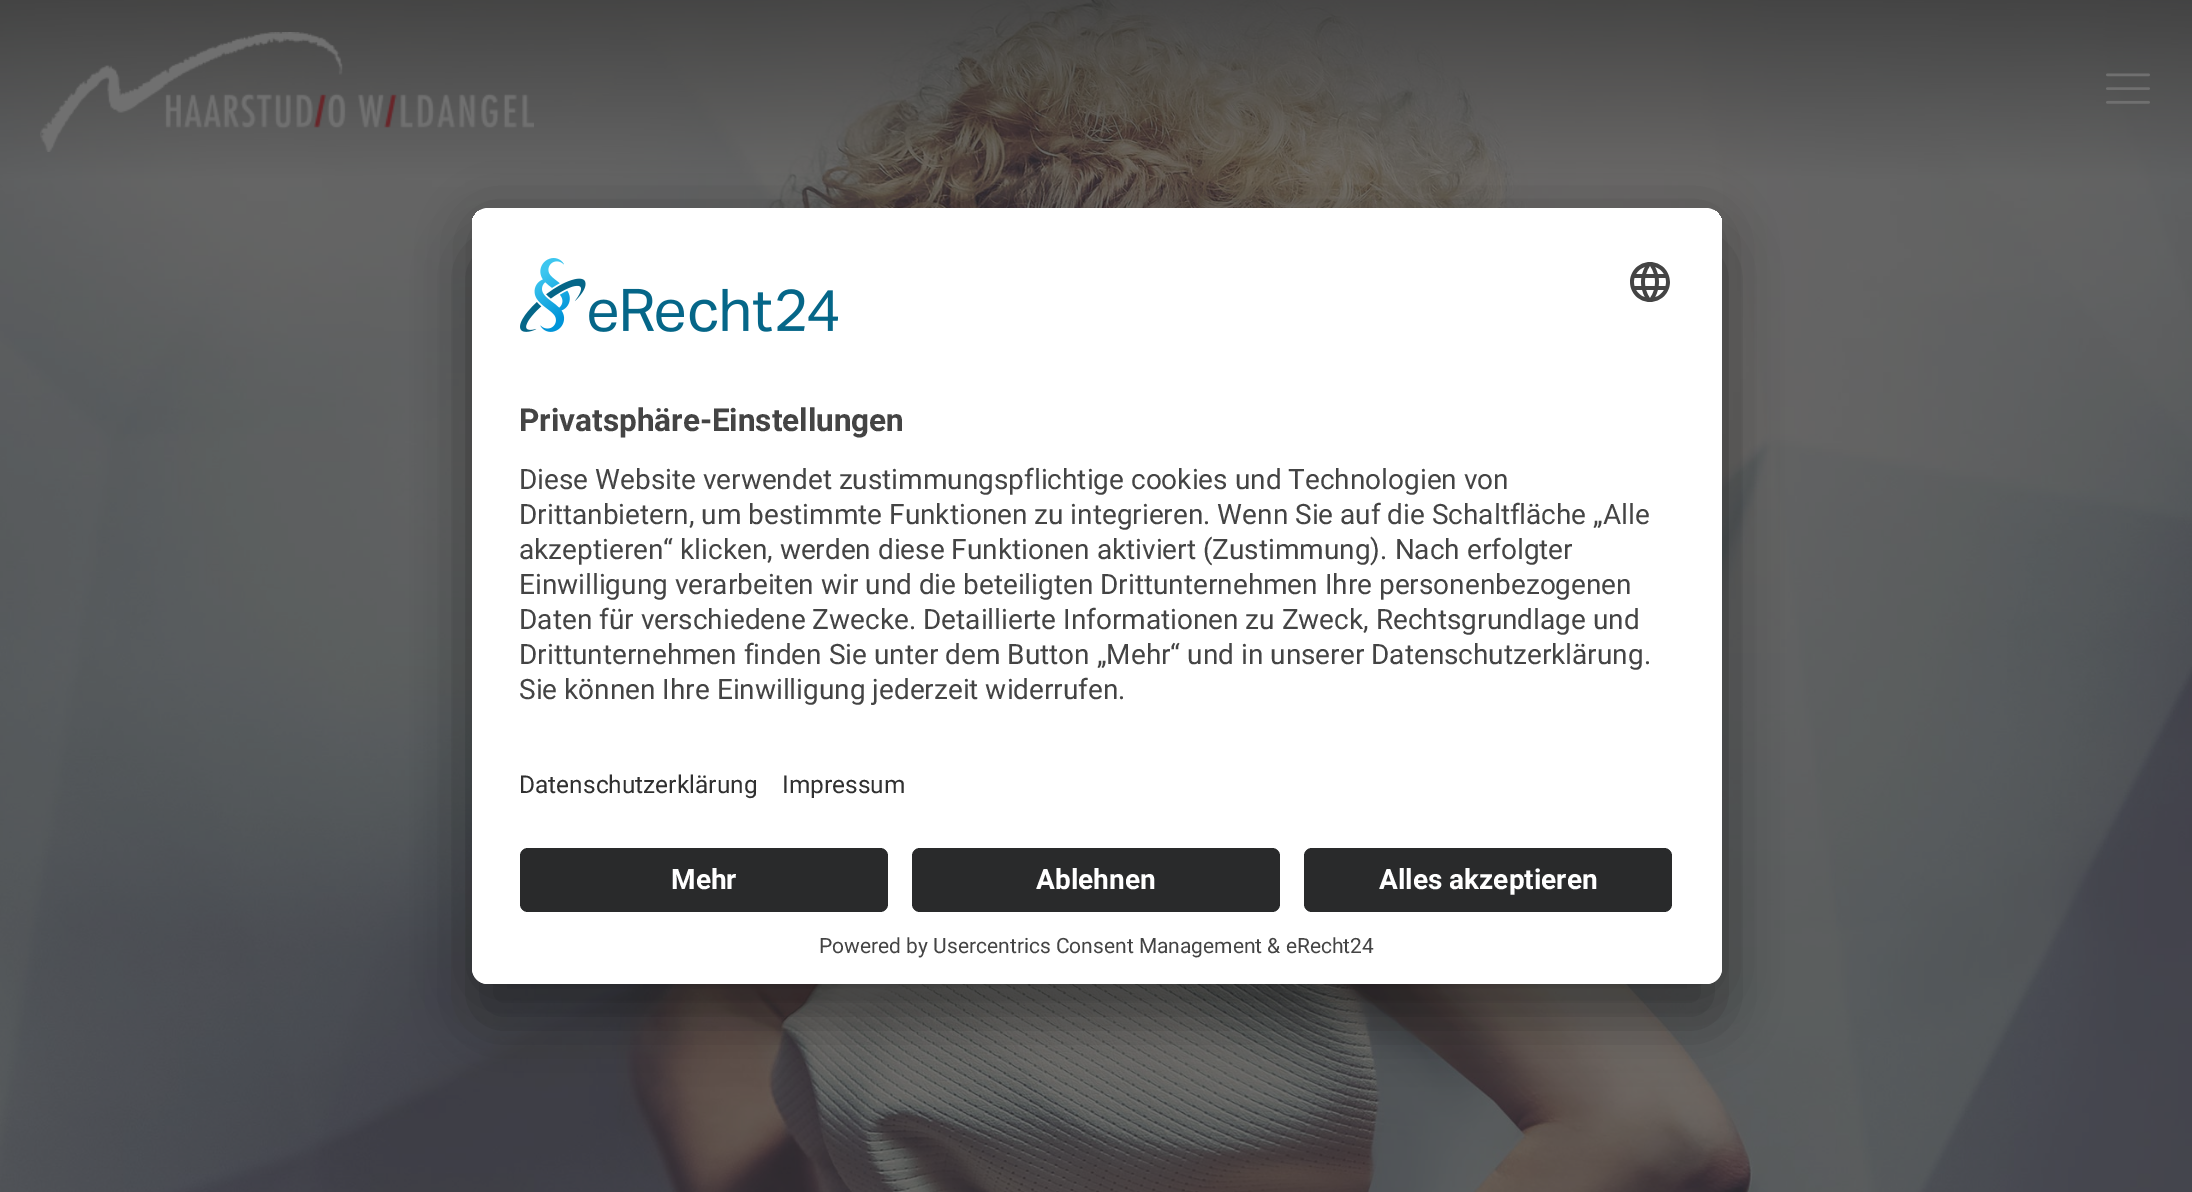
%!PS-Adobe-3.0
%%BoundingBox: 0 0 2192 1192
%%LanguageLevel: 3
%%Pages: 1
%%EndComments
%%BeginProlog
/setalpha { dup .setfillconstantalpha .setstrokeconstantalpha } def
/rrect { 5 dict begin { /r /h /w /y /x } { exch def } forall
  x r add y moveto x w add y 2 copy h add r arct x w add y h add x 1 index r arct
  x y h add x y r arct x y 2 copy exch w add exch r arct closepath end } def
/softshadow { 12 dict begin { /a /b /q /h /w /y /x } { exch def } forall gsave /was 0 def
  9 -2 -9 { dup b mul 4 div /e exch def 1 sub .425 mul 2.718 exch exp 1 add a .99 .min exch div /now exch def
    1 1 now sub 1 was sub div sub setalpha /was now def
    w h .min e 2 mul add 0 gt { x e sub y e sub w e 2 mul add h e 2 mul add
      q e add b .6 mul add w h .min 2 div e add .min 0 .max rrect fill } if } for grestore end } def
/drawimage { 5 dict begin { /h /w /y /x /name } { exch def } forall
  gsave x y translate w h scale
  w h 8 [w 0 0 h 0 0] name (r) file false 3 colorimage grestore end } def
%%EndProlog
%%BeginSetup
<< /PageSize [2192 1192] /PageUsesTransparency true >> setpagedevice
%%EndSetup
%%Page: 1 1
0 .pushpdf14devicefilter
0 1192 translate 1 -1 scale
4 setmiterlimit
1 setgray
0 0 2192 1192 rectfill
(images/1.raw) 0 0 2192 1192 drawimage
(images/2.raw) 40 32 494 120 drawimage
(images/3.raw) 2106 73 44 31 drawimage
0 setgray
472 248 1250 776 16 28 0.3 softshadow
472 218 1250 776 16 26 0.22 softshadow
1 setgray
472 208 1250 776 16 rrect fill
gsave
472 208 1250 776 16 rrect clip newpath
newpath 488 208 moveto 1706 208 lineto 1715 208 1722 215 1722 224 curveto 1722 832 lineto 472 832 lineto 472 224 lineto 472 215 479 208 488 208 curveto closepath clip newpath
472 210 1250 622 rectfill
grestore
(images/4.raw) 520 258 318 74 drawimage
(images/5.raw) 1630 262 40 40 drawimage
newpath 472 832 moveto 1722 832 lineto 1722 968 lineto 1722 977 1715 984 1706 984 curveto 488 984 lineto 479 984 472 977 472 968 curveto closepath fill
0.161 0.165 0.169 setrgbcolor
520 848 368 64 8 rrect fill
912 848 368 64 8 rrect fill
1304 848 368 64 8 rrect fill
/Roboto-Bold [31.5 0 0 -31.5 0 0] selectfont
0.267 setgray
519 431 moveto (Privatsphäre-Einstellungen) show
/Roboto-Regular [28 0 0 -28 0 0] selectfont
519 489 moveto (Diese Website verwendet zustimmungspflichtige cookies und Technologien von) show
519 524 moveto (Drittanbietern, um bestimmte Funktionen zu integrieren. Wenn Sie auf die Schaltfläche „Alle) show
519 559 moveto (akzeptieren“ klicken, werden diese Funktionen aktiviert \(Zustimmung\). Nach erfolgter) show
519 594 moveto (Einwilligung verarbeiten wir und die beteiligten Drittunternehmen Ihre personenbezogenen) show
519 629 moveto (Daten für verschiedene Zwecke. Detaillierte Informationen zu Zweck, Rechtsgrundlage und) show
519 664 moveto (Drittunternehmen finden Sie unter dem Button „Mehr“ und in unserer Datenschutzerklärung.) show
519 699 moveto (Sie können Ihre Einwilligung jederzeit widerrufen.) show
/Roboto-Regular [24.5 0 0 -24.5 0 0] selectfont
0.188 setgray
519 793 moveto (Datenschutzerklärung) show
782 793 moveto (Impressum) show
/Roboto-Bold [28 0 0 -28 0 0] selectfont
1 setgray
671 889 moveto (Mehr) show
1036 889 moveto (Ablehnen) show
1379 889 moveto (Alles akzeptieren) show
/Roboto-Regular [21 0 0 -21 0 0] selectfont
0.267 setgray
819 953 moveto (Powered by Usercentrics Consent Management & eRecht24) show
.poppdf14devicefilter showpage
%%EOF
